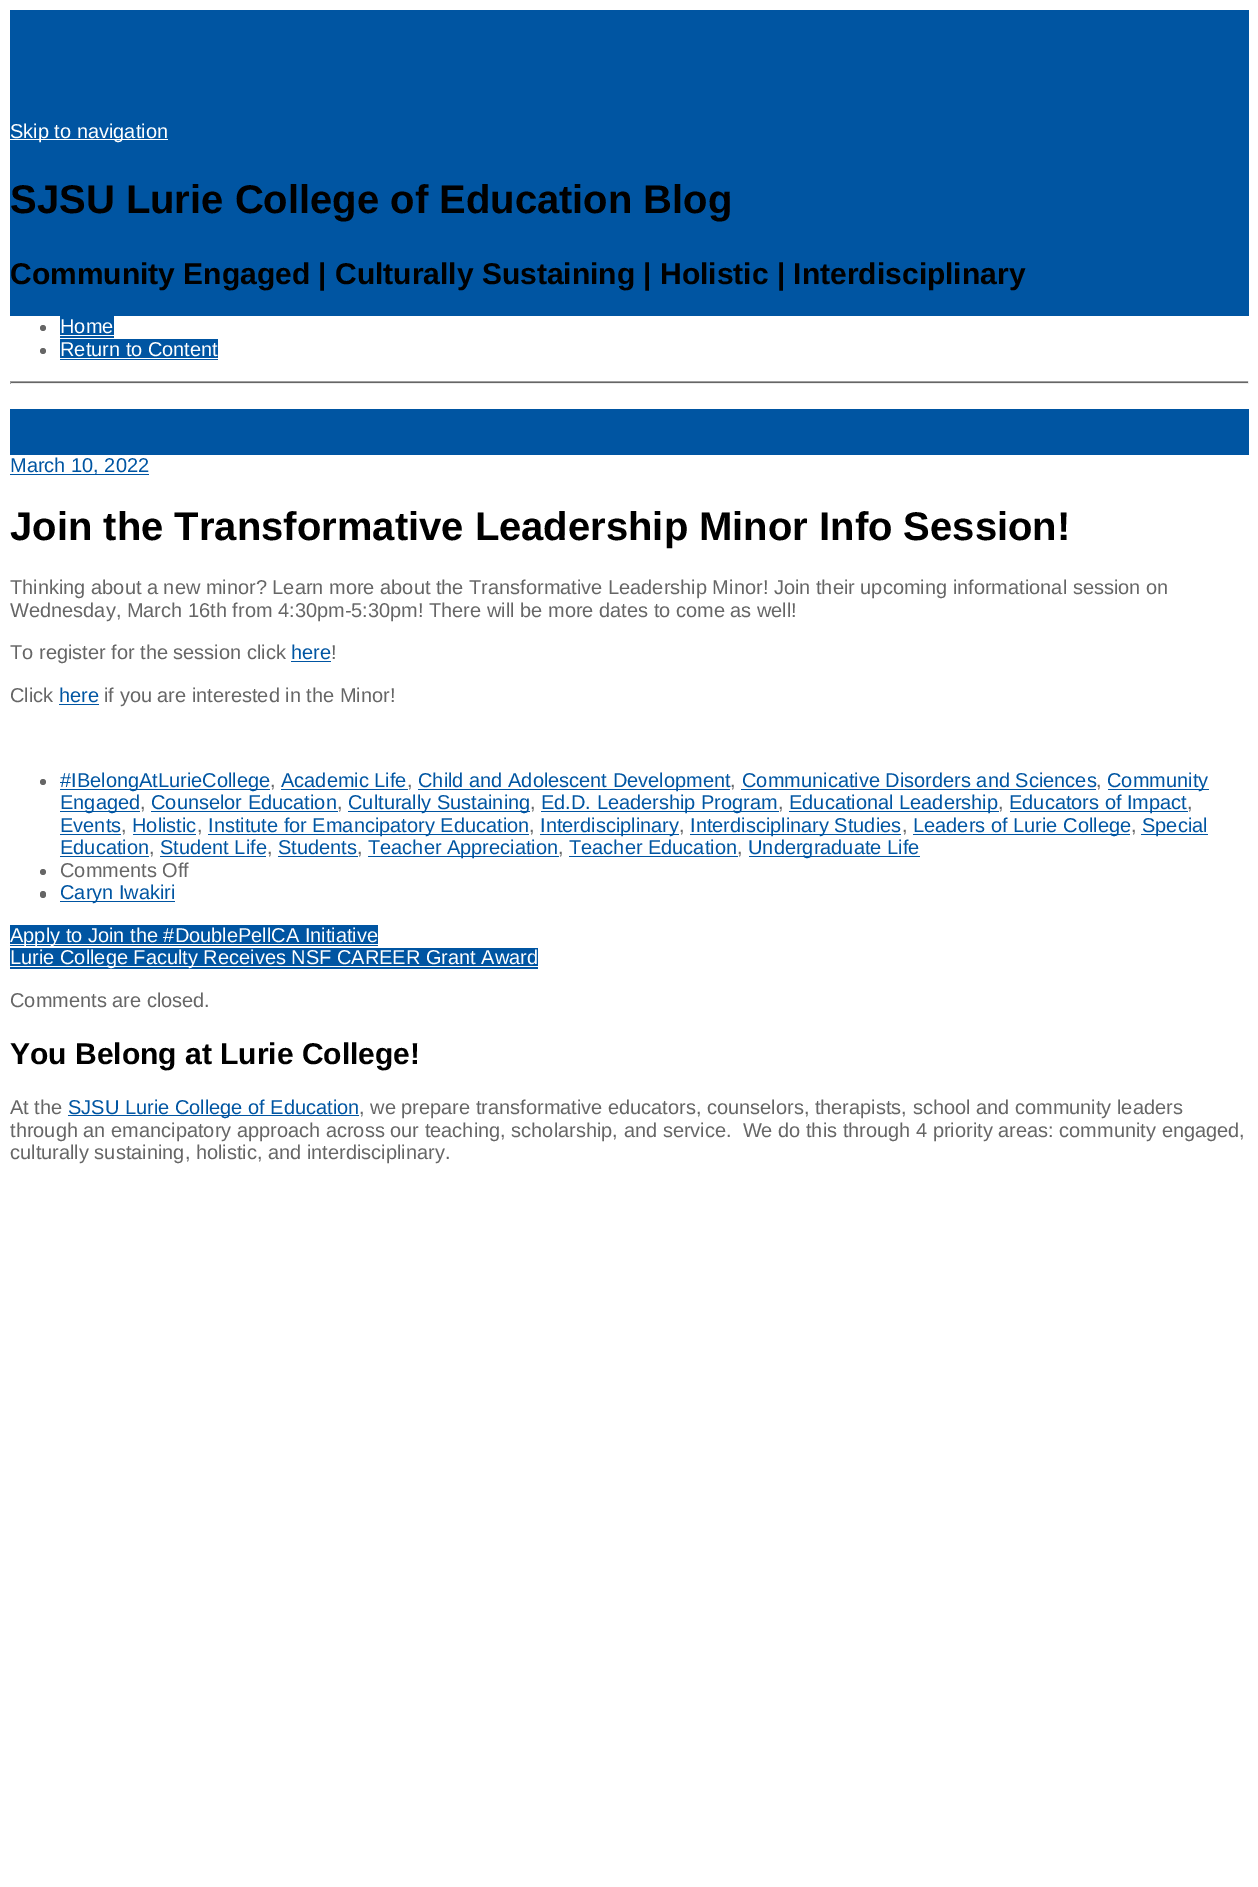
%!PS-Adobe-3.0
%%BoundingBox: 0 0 1258 1887
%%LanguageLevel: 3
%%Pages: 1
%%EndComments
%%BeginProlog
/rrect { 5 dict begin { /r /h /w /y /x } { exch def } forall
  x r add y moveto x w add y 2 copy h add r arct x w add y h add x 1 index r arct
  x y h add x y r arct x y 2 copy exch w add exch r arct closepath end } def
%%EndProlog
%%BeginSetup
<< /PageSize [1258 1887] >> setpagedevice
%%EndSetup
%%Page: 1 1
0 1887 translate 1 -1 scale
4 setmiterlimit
1 setgray
0 0 1258 1887 rectfill
0 0.333 0.635 setrgbcolor
10 10 1239 445 rectfill
1 setgray
10 139 158 1 rectfill
10 316 1239 93 rectfill
0.4 setgray
newpath 43 328 3 0 360 arc closepath fill
0 0.333 0.635 setrgbcolor
60 316 54 22 rectfill
1 setgray
60 335 54 1 rectfill
0.4 setgray
newpath 43 351 3 0 360 arc closepath fill
0 0.333 0.635 setrgbcolor
60 339 158 21 rectfill
1 setgray
60 358 158 1 rectfill
0.4 setgray
10 382 1239 1 rectfill
0.624 setgray
10 381 1239 1 rectfill
0.933 setgray
1248 381 1 3 rectfill
10 383 1239 1 rectfill
0.624 setgray
10 381 1 3 rectfill
0 0.333 0.635 setrgbcolor
10 474 139 1 rectfill
291 661 40 1 rectfill
59 704 40 1 rectfill
0.4 setgray
newpath 43 782 3 0 360 arc closepath fill
0 0.333 0.635 setrgbcolor
60 789 210 1 rectfill
281 789 127 1 rectfill
418 789 312 1 rectfill
741 789 355 1 rectfill
1108 789 101 1 rectfill
60 811 80 1 rectfill
151 811 187 1 rectfill
348 811 182 1 rectfill
541 811 238 1 rectfill
789 811 210 1 rectfill
1010 811 178 1 rectfill
60 834 61 1 rectfill
133 834 63 1 rectfill
208 834 321 1 rectfill
540 834 139 1 rectfill
690 834 211 1 rectfill
913 834 217 1 rectfill
1141 834 67 1 rectfill
60 856 89 1 rectfill
160 856 106 1 rectfill
278 856 80 1 rectfill
368 856 191 1 rectfill
569 856 169 1 rectfill
749 856 171 1 rectfill
0.4 setgray
newpath 43 872 3 0 360 arc closepath fill
40 891 6 7 3 rrect fill
0 0.333 0.635 setrgbcolor
60 901 115 1 rectfill
10 925 368 21 rectfill
1 setgray
10 944 368 1 rectfill
0 0.333 0.635 setrgbcolor
10 948 528 21 rectfill
1 setgray
10 966 528 1 rectfill
0 0.333 0.635 setrgbcolor
68 1115 291 1 rectfill
/LiberationSans-Regular [20 0 0 -20 0 0] selectfont
1 setgray
10 138 moveto (Skip to navigation) show
/LiberationSans-Bold [40 0 0 -40 0 0] selectfont
0 setgray
10 213 moveto (SJSU Lurie College of Education Blog) show
/LiberationSans-Bold [30 0 0 -30 0 0] selectfont
10 284 moveto (Community Engaged | Culturally Sustaining | Holistic | Interdisciplinary) show
/LiberationSans-Regular [20 0 0 -20 0 0] selectfont
1 setgray
60 333 moveto (Home) show
60 356 moveto (Return to Content) show
0 0.333 0.635 setrgbcolor
10 472 moveto (March 10, 2022) show
/LiberationSans-Bold [40 0 0 -40 0 0] selectfont
0 setgray
10 540 moveto (Join the Transformative Leadership Minor Info Session!) show
/LiberationSans-Regular [20 0 0 -20 0 0] selectfont
0.4 setgray
10 594 moveto (Thinking about a new minor? Learn more about the Transformative Leadership Minor! Join their upcoming informational session on) show
10 617 moveto (Wednesday, March 16th from 4:30pm-5:30pm! There will be more dates to come as well!) show
10 659 moveto (To register for the session click) show
0 0.333 0.635 setrgbcolor
291 659 moveto (here) show
0.4 setgray
331 659 moveto (!) show
10 702 moveto (Click) show
0 0.333 0.635 setrgbcolor
59 702 moveto (here) show
0.4 setgray
104 702 moveto (if you are interested in the Minor!) show
0 0.333 0.635 setrgbcolor
60 787 moveto (#IBelongAtLurieCollege) show
281 787 moveto (Academic Life) show
418 787 moveto (Child and Adolescent Development) show
742 787 moveto (Communicative Disorders and Sciences) show
1107 787 moveto (Community) show
0.4 setgray
270 787 moveto (,) show
407 787 moveto (,) show
730 787 moveto (,) show
1096 787 moveto (,) show
0 0.333 0.635 setrgbcolor
60 809 moveto (Engaged) show
0.4 setgray
140 809 moveto (,) show
0 0.333 0.635 setrgbcolor
151 809 moveto (Counselor Education) show
0.4 setgray
337 809 moveto (,) show
0 0.333 0.635 setrgbcolor
348 809 moveto (Culturally Sustaining) show
0.4 setgray
530 809 moveto (,) show
0 0.333 0.635 setrgbcolor
541 809 moveto (Ed.D. Leadership Program) show
0.4 setgray
778 809 moveto (,) show
0 0.333 0.635 setrgbcolor
789 809 moveto (Educational Leadership) show
0.4 setgray
998 809 moveto (,) show
0 0.333 0.635 setrgbcolor
1009 809 moveto (Educators of Impact) show
0.4 setgray
1187 809 moveto (,) show
0 0.333 0.635 setrgbcolor
60 832 moveto (Events) show
0.4 setgray
121 832 moveto (,) show
0 0.333 0.635 setrgbcolor
132 832 moveto (Holistic) show
0.4 setgray
197 832 moveto (,) show
0 0.333 0.635 setrgbcolor
208 832 moveto (Institute for Emancipatory Education) show
0.4 setgray
529 832 moveto (,) show
0 0.333 0.635 setrgbcolor
540 832 moveto (Interdisciplinary) show
0.4 setgray
679 832 moveto (,) show
0 0.333 0.635 setrgbcolor
690 832 moveto (Interdisciplinary Studies) show
0.4 setgray
902 832 moveto (,) show
0 0.333 0.635 setrgbcolor
913 832 moveto (Leaders of Lurie College) show
0.4 setgray
1131 832 moveto (,) show
0 0.333 0.635 setrgbcolor
1142 832 moveto (Special) show
60 854 moveto (Education) show
0.4 setgray
149 854 moveto (,) show
0 0.333 0.635 setrgbcolor
160 854 moveto (Student Life) show
0.4 setgray
267 854 moveto (,) show
0 0.333 0.635 setrgbcolor
278 854 moveto (Students) show
0.4 setgray
357 854 moveto (,) show
0 0.333 0.635 setrgbcolor
368 854 moveto (Teacher Appreciation) show
0.4 setgray
558 854 moveto (,) show
0 0.333 0.635 setrgbcolor
569 854 moveto (Teacher Education) show
0.4 setgray
737 854 moveto (,) show
0 0.333 0.635 setrgbcolor
748 854 moveto (Undergraduate Life) show
0.4 setgray
60 877 moveto (Comments Off) show
0 0.333 0.635 setrgbcolor
60 899 moveto (Caryn Iwakiri) show
1 setgray
10 942 moveto (Apply to Join the #DoublePellCA Initiative) show
10 964 moveto (Lurie College Faculty Receives NSF CAREER Grant Award) show
0.4 setgray
10 1007 moveto (Comments are closed.) show
/LiberationSans-Bold [30 0 0 -30 0 0] selectfont
0 setgray
10 1064 moveto (You Belong at Lurie College!) show
/LiberationSans-Regular [20 0 0 -20 0 0] selectfont
0.4 setgray
10 1114 moveto (At the) show
0 0.333 0.635 setrgbcolor
68 1114 moveto (SJSU Lurie College of Education) show
0.4 setgray
359 1114 moveto (, we prepare transformative educators, counselors, therapists, school and community leaders) show
10 1137 moveto (through an emancipatory approach across our teaching, scholarship, and service.  We do this through 4 priority areas: community engaged,) show
10 1159 moveto (culturally sustaining, holistic, and interdisciplinary.) show
showpage
%%EOF
